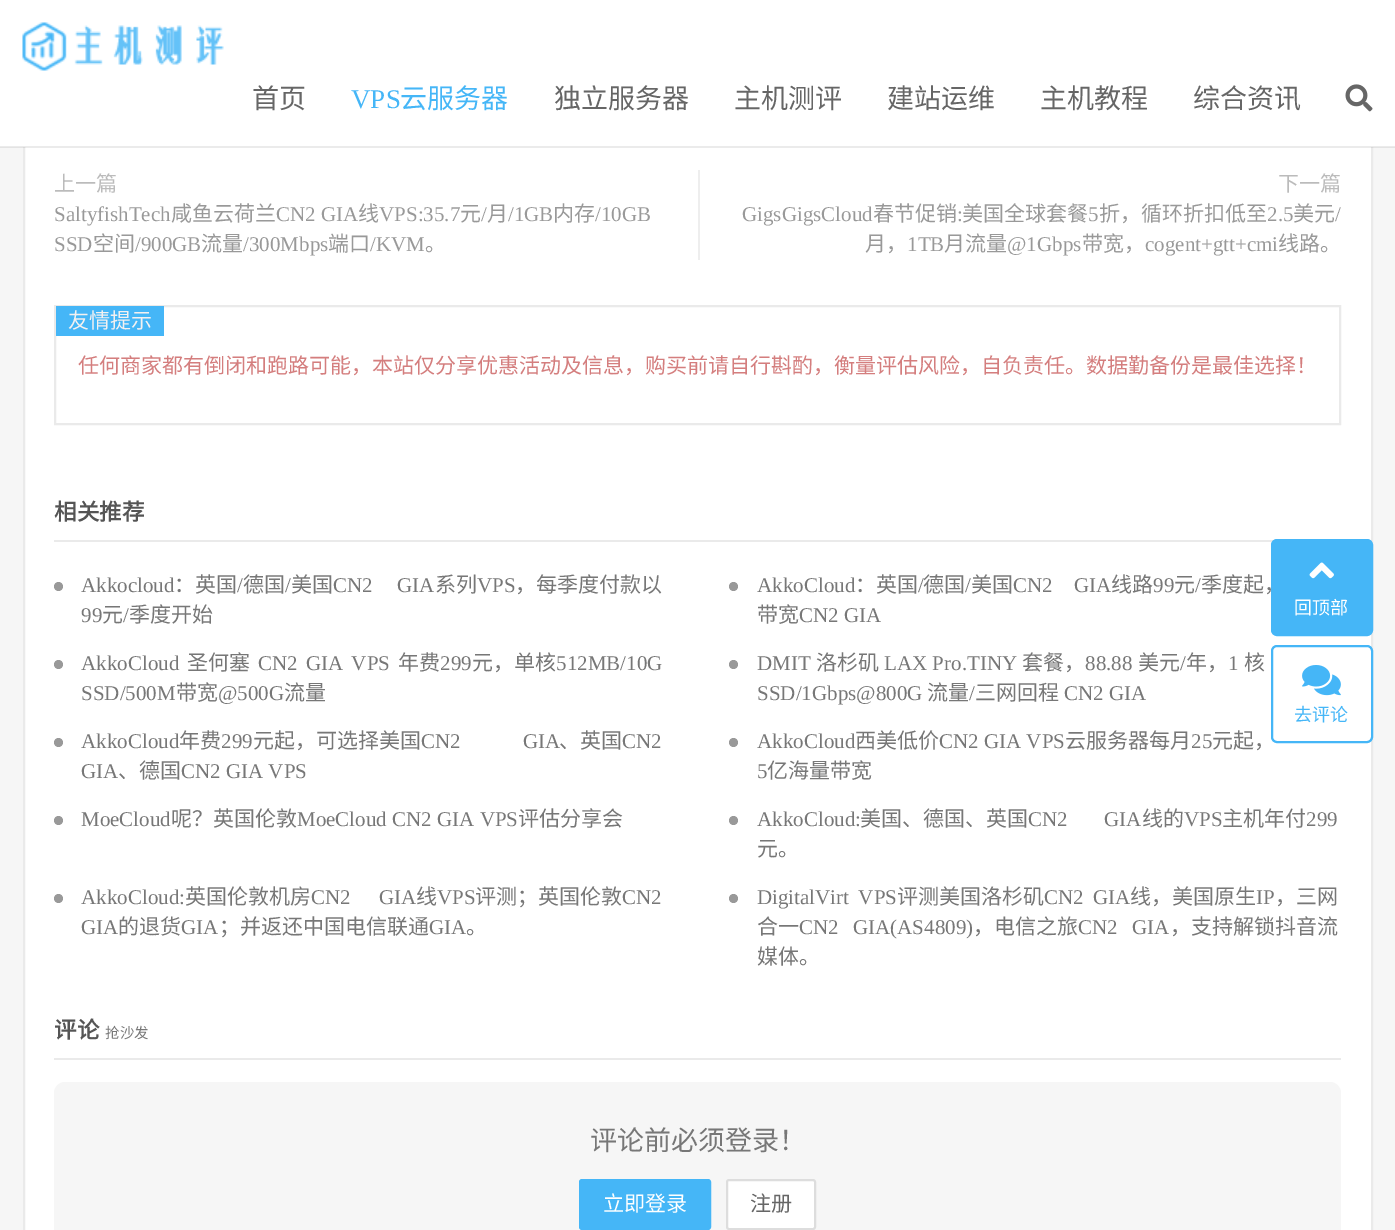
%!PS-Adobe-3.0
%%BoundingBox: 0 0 1395 1230
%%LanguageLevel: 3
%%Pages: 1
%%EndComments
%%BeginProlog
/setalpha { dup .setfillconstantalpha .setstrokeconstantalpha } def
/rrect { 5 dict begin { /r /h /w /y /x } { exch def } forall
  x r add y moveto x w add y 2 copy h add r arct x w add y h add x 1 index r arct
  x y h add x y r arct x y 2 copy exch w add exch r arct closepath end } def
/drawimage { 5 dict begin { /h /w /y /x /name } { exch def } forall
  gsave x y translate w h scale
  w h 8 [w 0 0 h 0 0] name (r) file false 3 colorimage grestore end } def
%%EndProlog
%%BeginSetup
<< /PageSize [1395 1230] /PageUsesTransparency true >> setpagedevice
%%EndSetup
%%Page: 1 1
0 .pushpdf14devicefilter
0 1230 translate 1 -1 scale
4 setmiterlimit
0.965 setgray
0 0 1395 1230 rectfill
1 setgray
25 147 1346 1083 rectfill
0.918 setgray
2 setlinewidth
24 -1 1348 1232 rectstroke
1 setgray
0 0 1395 147 rectfill
0.08 setalpha
0 setgray
0 146 1395 2 rectfill
1 setalpha
(images/1.raw) 22 22 202 49 drawimage
(images/2.raw) 1345 84 28 28 drawimage
0.933 setgray
698 170 2 90 rectfill
0.918 setgray
55 306 1285 118 rectstroke
0.271 0.714 0.969 setrgbcolor
56 306 108 30 rectfill
0.918 setgray
54 540 1220 2 rectfill
0.6 setgray
newpath 58.5 586.5 4.5 0 360 arc closepath fill
newpath 733.5 586.5 4.5 0 360 arc closepath fill
newpath 58.5 664.5 4.5 0 360 arc closepath fill
newpath 733.5 664.5 4.5 0 360 arc closepath fill
newpath 58.5 742.5 4.5 0 360 arc closepath fill
newpath 733.5 742.5 4.5 0 360 arc closepath fill
newpath 58.5 820.5 4.5 0 360 arc closepath fill
newpath 733.5 820.5 4.5 0 360 arc closepath fill
newpath 58.5 898.5 4.5 0 360 arc closepath fill
newpath 733.5 898.5 4.5 0 360 arc closepath fill
0.918 setgray
54 1058 1287 2 rectfill
0.965 setgray
54 1082 1287 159 11 rrect fill
0.271 0.714 0.969 setrgbcolor
580 1180 130 49 2 rrect gsave fill grestore
stroke
1 setgray
727 1180 88 49 2 rrect gsave fill grestore
0.867 setgray
stroke
1 setgray
1272 646 100 96 5 rrect gsave fill grestore
0.271 0.714 0.969 setrgbcolor
stroke
(images/4.raw) 1302 665 39 31 drawimage
/NotoSansCJKSC-Regular [27 0 0 -27 0 0] selectfont
0.4 setgray
252 108 moveto (首页) show
/LiberationSerif-Regular [27 0 0 -27 0 0] selectfont
0.271 0.714 0.969 setrgbcolor
351 108 moveto (VPS) show
/NotoSansCJKSC-Regular [27 0 0 -27 0 0] selectfont
400 108 moveto (云服务器) show
0.4 setgray
554 108 moveto (独立服务器) show
734 108 moveto (主机测评) show
887 108 moveto (建站运维) show
1040 108 moveto (主机教程) show
1193 108 moveto (综合资讯) show
/NotoSansCJKSC-Regular [21 0 0 -21 0 0] selectfont
0.733 setgray
54 191 moveto (上一篇) show
/LiberationSerif-Regular [21 0 0 -21 0 0] selectfont
0.6 setgray
54 221 moveto (SaltyfishTech) show
/NotoSansCJKSC-Regular [21 0 0 -21 0 0] selectfont
171 221 moveto (咸鱼云荷兰) show
/LiberationSerif-Regular [21 0 0 -21 0 0] selectfont
276 221 moveto (CN2 GIA) show
/NotoSansCJKSC-Regular [21 0 0 -21 0 0] selectfont
358 221 moveto (线) show
/LiberationSerif-Regular [21 0 0 -21 0 0] selectfont
379 221 moveto (VPS:35.7) show
/NotoSansCJKSC-Regular [21 0 0 -21 0 0] selectfont
460 221 moveto (元) show
/LiberationSerif-Regular [21 0 0 -21 0 0] selectfont
481 221 moveto (/) show
/NotoSansCJKSC-Regular [21 0 0 -21 0 0] selectfont
487 221 moveto (月) show
/LiberationSerif-Regular [21 0 0 -21 0 0] selectfont
508 221 moveto (/1GB) show
/NotoSansCJKSC-Regular [21 0 0 -21 0 0] selectfont
553 221 moveto (内存) show
/LiberationSerif-Regular [21 0 0 -21 0 0] selectfont
595 221 moveto (/10GB) show
54 251 moveto (SSD) show
/NotoSansCJKSC-Regular [21 0 0 -21 0 0] selectfont
93 251 moveto (空间) show
/LiberationSerif-Regular [21 0 0 -21 0 0] selectfont
135 251 moveto (/900GB) show
/NotoSansCJKSC-Regular [21 0 0 -21 0 0] selectfont
201 251 moveto (流量) show
/LiberationSerif-Regular [21 0 0 -21 0 0] selectfont
243 251 moveto (/300Mbps) show
/NotoSansCJKSC-Regular [21 0 0 -21 0 0] selectfont
328 251 moveto (端口) show
/LiberationSerif-Regular [21 0 0 -21 0 0] selectfont
370 251 moveto (/KVM) show
/NotoSansCJKSC-Regular [21 0 0 -21 0 0] selectfont
425 251 moveto (。) show
0.733 setgray
1278 191 moveto (下一篇) show
/LiberationSerif-Regular [21 0 0 -21 0 0] selectfont
0.6 setgray
742 221 moveto (GigsGigsCloud) show
/NotoSansCJKSC-Regular [21 0 0 -21 0 0] selectfont
873 221 moveto (春节促销) show
/LiberationSerif-Regular [21 0 0 -21 0 0] selectfont
957 221 moveto (:) show
/NotoSansCJKSC-Regular [21 0 0 -21 0 0] selectfont
962 221 moveto (美国全球套餐) show
/LiberationSerif-Regular [21 0 0 -21 0 0] selectfont
1088 221 moveto (5) show
/NotoSansCJKSC-Regular [21 0 0 -21 0 0] selectfont
1099 221 moveto (折，循环折扣低至) show
/LiberationSerif-Regular [21 0 0 -21 0 0] selectfont
1267 221 moveto (2.5) show
/NotoSansCJKSC-Regular [21 0 0 -21 0 0] selectfont
1293 221 moveto (美元) show
/LiberationSerif-Regular [21 0 0 -21 0 0] selectfont
1335 221 moveto (/) show
/NotoSansCJKSC-Regular [21 0 0 -21 0 0] selectfont
865 251 moveto (月，) show
/LiberationSerif-Regular [21 0 0 -21 0 0] selectfont
907 251 moveto (1TB) show
/NotoSansCJKSC-Regular [21 0 0 -21 0 0] selectfont
944 251 moveto (月流量) show
/LiberationSerif-Regular [21 0 0 -21 0 0] selectfont
1007 251 moveto (@1Gbps) show
/NotoSansCJKSC-Regular [21 0 0 -21 0 0] selectfont
1082 251 moveto (带宽，) show
/LiberationSerif-Regular [21 0 0 -21 0 0] selectfont
1145 251 moveto (cogent+gtt+cmi) show
/NotoSansCJKSC-Regular [21 0 0 -21 0 0] selectfont
1278 251 moveto (线路。) show
0.953 0.945 0.945 setrgbcolor
68 328 moveto (友情提示) show
0.831 0.494 0.494 setrgbcolor
78 373 moveto (任何商家都有倒闭和跑路可能，本站仅分享优惠活动及信息，购买前请自行斟酌，衡量评估风险，自负责任。数据勤备份是最佳选择！) show
/NotoSansCJKSC-Bold [22.5 0 0 -22.5 0 0] selectfont
0.333 setgray
54 520 moveto (相关推荐) show
/LiberationSerif-Regular [21 0 0 -21 0 0] selectfont
0.467 setgray
81 592 moveto (Akkocloud) show
/NotoSansCJKSC-Regular [21 0 0 -21 0 0] selectfont
174 592 moveto (：英国) show
/LiberationSerif-Regular [21 0 0 -21 0 0] selectfont
237 592 moveto (/) show
/NotoSansCJKSC-Regular [21 0 0 -21 0 0] selectfont
243 592 moveto (德国) show
/LiberationSerif-Regular [21 0 0 -21 0 0] selectfont
285 592 moveto (/) show
/NotoSansCJKSC-Regular [21 0 0 -21 0 0] selectfont
291 592 moveto (美国) show
/LiberationSerif-Regular [21 0 0 -21 0 0] selectfont
333 592 moveto 19 0 32 (CN2 GIA) widthshow
/NotoSansCJKSC-Regular [21 0 0 -21 0 0] selectfont
435 592 moveto (系列) show
/LiberationSerif-Regular [21 0 0 -21 0 0] selectfont
477 592 moveto (VPS) show
/NotoSansCJKSC-Regular [21 0 0 -21 0 0] selectfont
515 592 moveto (，每季度付款以) show
/LiberationSerif-Regular [21 0 0 -21 0 0] selectfont
81 622 moveto (99) show
/NotoSansCJKSC-Regular [21 0 0 -21 0 0] selectfont
102 622 moveto (元) show
/LiberationSerif-Regular [21 0 0 -21 0 0] selectfont
123 622 moveto (/) show
/NotoSansCJKSC-Regular [21 0 0 -21 0 0] selectfont
129 622 moveto (季度开始) show
/LiberationSerif-Regular [21 0 0 -21 0 0] selectfont
757 592 moveto (AkkoCloud) show
/NotoSansCJKSC-Regular [21 0 0 -21 0 0] selectfont
855 592 moveto (：英国) show
/LiberationSerif-Regular [21 0 0 -21 0 0] selectfont
918 592 moveto (/) show
/NotoSansCJKSC-Regular [21 0 0 -21 0 0] selectfont
923 592 moveto (德国) show
/LiberationSerif-Regular [21 0 0 -21 0 0] selectfont
965 592 moveto (/) show
/NotoSansCJKSC-Regular [21 0 0 -21 0 0] selectfont
971 592 moveto (美国) show
/LiberationSerif-Regular [21 0 0 -21 0 0] selectfont
1013 592 moveto 16 0 32 (CN2 GIA) widthshow
/NotoSansCJKSC-Regular [21 0 0 -21 0 0] selectfont
1111 592 moveto (线路) show
/LiberationSerif-Regular [21 0 0 -21 0 0] selectfont
1153 592 moveto (99) show
/NotoSansCJKSC-Regular [21 0 0 -21 0 0] selectfont
1174 592 moveto (元) show
/LiberationSerif-Regular [21 0 0 -21 0 0] selectfont
1195 592 moveto (/) show
/NotoSansCJKSC-Regular [21 0 0 -21 0 0] selectfont
1201 592 moveto (季度起，) show
757 622 moveto (带宽) show
/LiberationSerif-Regular [21 0 0 -21 0 0] selectfont
799 622 moveto (CN2 GIA) show
81 670 moveto (AkkoCloud) show
/NotoSansCJKSC-Regular [21 0 0 -21 0 0] selectfont
187 670 moveto (圣何塞) show
/LiberationSerif-Regular [21 0 0 -21 0 0] selectfont
258 670 moveto 3 0 32 (CN2 GIA VPS) widthshow
/NotoSansCJKSC-Regular [21 0 0 -21 0 0] selectfont
398 670 moveto (年费) show
/LiberationSerif-Regular [21 0 0 -21 0 0] selectfont
440 670 moveto (299) show
/NotoSansCJKSC-Regular [21 0 0 -21 0 0] selectfont
472 670 moveto (元，单核) show
/LiberationSerif-Regular [21 0 0 -21 0 0] selectfont
556 670 moveto (512MB/10G) show
81 700 moveto (SSD/500M) show
/NotoSansCJKSC-Regular [21 0 0 -21 0 0] selectfont
176 700 moveto (带宽) show
/LiberationSerif-Regular [21 0 0 -21 0 0] selectfont
218 700 moveto (@500G) show
/NotoSansCJKSC-Regular [21 0 0 -21 0 0] selectfont
284 700 moveto (流量) show
/LiberationSerif-Regular [21 0 0 -21 0 0] selectfont
757 670 moveto (DMIT) show
/NotoSansCJKSC-Regular [21 0 0 -21 0 0] selectfont
816 670 moveto (洛杉矶) show
/LiberationSerif-Regular [21 0 0 -21 0 0] selectfont
884 670 moveto (LAX Pro.TINY) show
/NotoSansCJKSC-Regular [21 0 0 -21 0 0] selectfont
1022 670 moveto (套餐，) show
/LiberationSerif-Regular [21 0 0 -21 0 0] selectfont
1085 670 moveto (88.88) show
/NotoSansCJKSC-Regular [21 0 0 -21 0 0] selectfont
1138 670 moveto (美元) show
/LiberationSerif-Regular [21 0 0 -21 0 0] selectfont
1180 670 moveto (/) show
/NotoSansCJKSC-Regular [21 0 0 -21 0 0] selectfont
1186 670 moveto (年，) show
/LiberationSerif-Regular [21 0 0 -21 0 0] selectfont
1228 670 moveto (1) show
/NotoSansCJKSC-Regular [21 0 0 -21 0 0] selectfont
1244 670 moveto (核) show
/LiberationSerif-Regular [21 0 0 -21 0 0] selectfont
757 700 moveto (SSD/1Gbps@800G) show
/NotoSansCJKSC-Regular [21 0 0 -21 0 0] selectfont
927 700 moveto (流量) show
/LiberationSerif-Regular [21 0 0 -21 0 0] selectfont
969 700 moveto (/) show
/NotoSansCJKSC-Regular [21 0 0 -21 0 0] selectfont
975 700 moveto (三网回程) show
/LiberationSerif-Regular [21 0 0 -21 0 0] selectfont
1064 700 moveto (CN2 GIA) show
81 748 moveto (AkkoCloud) show
/NotoSansCJKSC-Regular [21 0 0 -21 0 0] selectfont
179 748 moveto (年费) show
/LiberationSerif-Regular [21 0 0 -21 0 0] selectfont
221 748 moveto (299) show
/NotoSansCJKSC-Regular [21 0 0 -21 0 0] selectfont
253 748 moveto (元起，可选择美国) show
/LiberationSerif-Regular [21 0 0 -21 0 0] selectfont
421 748 moveto 57 0 32 (CN2 GIA) widthshow
/NotoSansCJKSC-Regular [21 0 0 -21 0 0] selectfont
559 748 moveto (、英国) show
/LiberationSerif-Regular [21 0 0 -21 0 0] selectfont
622 748 moveto (CN2) show
81 778 moveto (GIA) show
/NotoSansCJKSC-Regular [21 0 0 -21 0 0] selectfont
118 778 moveto (、德国) show
/LiberationSerif-Regular [21 0 0 -21 0 0] selectfont
181 778 moveto (CN2 GIA VPS) show
757 748 moveto (AkkoCloud) show
/NotoSansCJKSC-Regular [21 0 0 -21 0 0] selectfont
855 748 moveto (西美低价) show
/LiberationSerif-Regular [21 0 0 -21 0 0] selectfont
939 748 moveto (CN2 GIA VPS) show
/NotoSansCJKSC-Regular [21 0 0 -21 0 0] selectfont
1065 748 moveto (云服务器每月) show
/LiberationSerif-Regular [21 0 0 -21 0 0] selectfont
1191 748 moveto (25) show
/NotoSansCJKSC-Regular [21 0 0 -21 0 0] selectfont
1212 748 moveto (元起，) show
/LiberationSerif-Regular [21 0 0 -21 0 0] selectfont
757 778 moveto (5) show
/NotoSansCJKSC-Regular [21 0 0 -21 0 0] selectfont
767 778 moveto (亿海量带宽) show
/LiberationSerif-Regular [21 0 0 -21 0 0] selectfont
81 826 moveto (MoeCloud) show
/NotoSansCJKSC-Regular [21 0 0 -21 0 0] selectfont
171 826 moveto (呢？英国伦敦) show
/LiberationSerif-Regular [21 0 0 -21 0 0] selectfont
297 826 moveto (MoeCloud CN2 GIA VPS) show
/NotoSansCJKSC-Regular [21 0 0 -21 0 0] selectfont
518 826 moveto (评估分享会) show
/LiberationSerif-Regular [21 0 0 -21 0 0] selectfont
757 826 moveto (AkkoCloud:) show
/NotoSansCJKSC-Regular [21 0 0 -21 0 0] selectfont
860 826 moveto (美国、德国、英国) show
/LiberationSerif-Regular [21 0 0 -21 0 0] selectfont
1028 826 moveto 31 0 32 (CN2 GIA) widthshow
/NotoSansCJKSC-Regular [21 0 0 -21 0 0] selectfont
1142 826 moveto (线的) show
/LiberationSerif-Regular [21 0 0 -21 0 0] selectfont
1184 826 moveto (VPS) show
/NotoSansCJKSC-Regular [21 0 0 -21 0 0] selectfont
1222 826 moveto (主机年付) show
/LiberationSerif-Regular [21 0 0 -21 0 0] selectfont
1306 826 moveto (299) show
/NotoSansCJKSC-Regular [21 0 0 -21 0 0] selectfont
757 856 moveto (元。) show
/LiberationSerif-Regular [21 0 0 -21 0 0] selectfont
81 904 moveto (AkkoCloud:) show
/NotoSansCJKSC-Regular [21 0 0 -21 0 0] selectfont
185 904 moveto (英国伦敦机房) show
/LiberationSerif-Regular [21 0 0 -21 0 0] selectfont
311 904 moveto 23 0 32 (CN2 GIA) widthshow
/NotoSansCJKSC-Regular [21 0 0 -21 0 0] selectfont
416 904 moveto (线) show
/LiberationSerif-Regular [21 0 0 -21 0 0] selectfont
437 904 moveto (VPS) show
/NotoSansCJKSC-Regular [21 0 0 -21 0 0] selectfont
475 904 moveto (评测；英国伦敦) show
/LiberationSerif-Regular [21 0 0 -21 0 0] selectfont
622 904 moveto (CN2) show
81 934 moveto (GIA) show
/NotoSansCJKSC-Regular [21 0 0 -21 0 0] selectfont
118 934 moveto (的退货) show
/LiberationSerif-Regular [21 0 0 -21 0 0] selectfont
181 934 moveto (GIA) show
/NotoSansCJKSC-Regular [21 0 0 -21 0 0] selectfont
219 934 moveto (；并返还中国电信联通) show
/LiberationSerif-Regular [21 0 0 -21 0 0] selectfont
429 934 moveto (GIA) show
/NotoSansCJKSC-Regular [21 0 0 -21 0 0] selectfont
466 934 moveto (。) show
/LiberationSerif-Regular [21 0 0 -21 0 0] selectfont
757 904 moveto 4 0 32 (DigitalVirt VPS) widthshow
/NotoSansCJKSC-Regular [21 0 0 -21 0 0] selectfont
897 904 moveto (评测美国洛杉矶) show
/LiberationSerif-Regular [21 0 0 -21 0 0] selectfont
1044 904 moveto 4 0 32 (CN2 GIA) widthshow
/NotoSansCJKSC-Regular [21 0 0 -21 0 0] selectfont
1130 904 moveto (线，美国原生) show
/LiberationSerif-Regular [21 0 0 -21 0 0] selectfont
1256 904 moveto (IP) show
/NotoSansCJKSC-Regular [21 0 0 -21 0 0] selectfont
1275 904 moveto (，三网) show
757 934 moveto (合一) show
/LiberationSerif-Regular [21 0 0 -21 0 0] selectfont
799 934 moveto 9 0 32 (CN2 GIA\(AS4809\)) widthshow
/NotoSansCJKSC-Regular [21 0 0 -21 0 0] selectfont
973 934 moveto (，电信之旅) show
/LiberationSerif-Regular [21 0 0 -21 0 0] selectfont
1078 934 moveto 9 0 32 (CN2 GIA) widthshow
/NotoSansCJKSC-Regular [21 0 0 -21 0 0] selectfont
1170 934 moveto (，支持解锁抖音流) show
757 964 moveto (媒体。) show
/NotoSansCJKSC-Bold [22.5 0 0 -22.5 0 0] selectfont
0.333 setgray
54 1038 moveto (评论) show
/NotoSansCJKSC-Regular [14.5 0 0 -14.5 0 0] selectfont
0.467 setgray
105 1038 moveto (抢沙发) show
/NotoSansCJKSC-Regular [27 0 0 -27 0 0] selectfont
590 1150 moveto (评论前必须登录！) show
/NotoSansCJKSC-Regular [21 0 0 -21 0 0] selectfont
1 setgray
603 1211 moveto (立即登录) show
0.4 setgray
750 1211 moveto (注册) show
0.271 0.714 0.969 setrgbcolor
1272 540 100 95 5 rrect gsave fill grestore
stroke
(images/3.raw) 1309 562 25 17 drawimage
/NotoSansCJKSC-Regular [18 0 0 -18 0 0] selectfont
1 setgray
1294 614 moveto (回顶部) show
0.271 0.714 0.969 setrgbcolor
1294 721 moveto (去评论) show
.poppdf14devicefilter showpage
%%EOF
